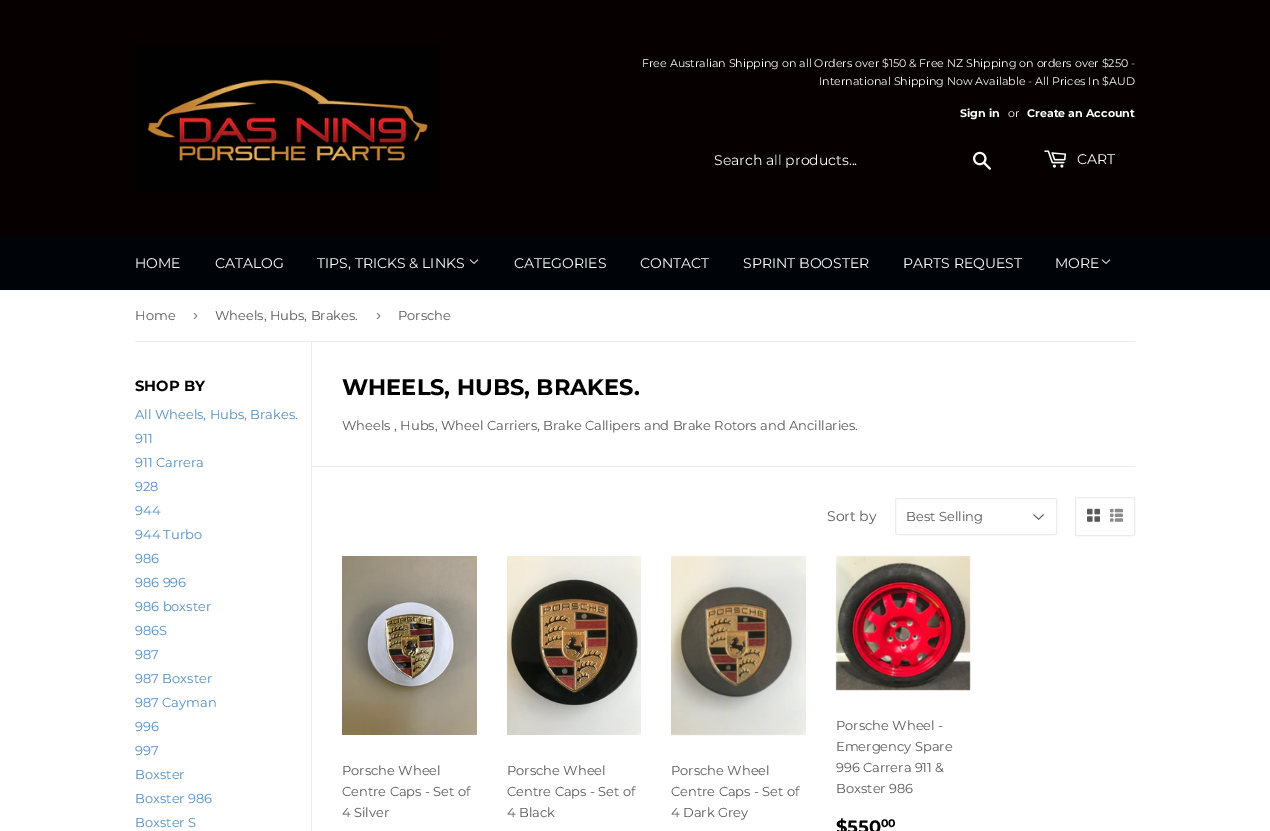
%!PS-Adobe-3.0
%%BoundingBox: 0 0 1270 831
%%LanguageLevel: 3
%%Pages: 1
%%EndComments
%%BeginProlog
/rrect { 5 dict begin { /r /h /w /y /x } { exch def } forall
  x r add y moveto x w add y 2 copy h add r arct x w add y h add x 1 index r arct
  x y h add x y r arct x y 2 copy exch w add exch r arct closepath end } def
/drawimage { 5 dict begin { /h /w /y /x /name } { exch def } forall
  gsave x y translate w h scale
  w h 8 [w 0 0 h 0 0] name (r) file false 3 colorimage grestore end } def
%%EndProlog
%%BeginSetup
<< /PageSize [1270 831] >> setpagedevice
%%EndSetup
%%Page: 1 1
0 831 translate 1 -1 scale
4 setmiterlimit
1 setgray
0 0 1270 831 rectfill
0.024 0 0 setrgbcolor
0 0 1270 237 rectfill
(images/1.raw) 135 45 305 147 drawimage
(images/2.raw) 973 151 18 19 drawimage
(images/3.raw) 1044 150 23 18 drawimage
0 0.016 0.035 setrgbcolor
0 237 1270 53 rectfill
(images/4.raw) 469 259 10 5 drawimage
(images/4.raw) 1101 259 10 5 drawimage
0.925 setgray
135 341 1000 1 rectfill
311 342 1 489 rectfill
312 466 823 1 rectfill
(images/5.raw) 1033 514 11 6 drawimage
895.5 498.5 161 36 1.5 rrect stroke
1075.5 497.5 59 38 1.5 rrect stroke
(images/6.raw) 1087 508 13 14 drawimage
(images/7.raw) 1110 508 13 14 drawimage
(images/8.raw) 342 556 135 179 drawimage
(images/9.raw) 507 556 134 179 drawimage
(images/10.raw) 671 555 135 181 drawimage
(images/11.raw) 835 555 136 136 drawimage
/Montserrat-Regular [11.05 0 0 -11.05 0 0] selectfont
1 setgray
642 67 moveto (Free Australian Shipping on all Orders over $150 & Free NZ Shipping on orders over $250 -) show
819 85 moveto (International Shipping Now Available - All Prices In $AUD) show
/Montserrat-Bold [11.05 0 0 -11.05 0 0] selectfont
960 117 moveto (Sign in) show
/Montserrat-Regular [11.05 0 0 -11.05 0 0] selectfont
1008 117 moveto (or) show
/Montserrat-Bold [11.05 0 0 -11.05 0 0] selectfont
1027 117 moveto (Create an Account) show
/Montserrat-Regular [14 0 0 -14 0 0] selectfont
714 165 moveto (Search all products...) show
1077 164 moveto (CART) show
135 268 moveto (HOME) show
215 268 moveto (CATALOG) show
317 268 moveto (TIPS, TRICKS & LINKS) show
514 268 moveto (CATEGORIES) show
640 268 moveto (CONTACT) show
743 268 moveto (SPRINT BOOSTER) show
903 268 moveto (PARTS REQUEST) show
1055 268 moveto (MORE) show
/Montserrat-Regular [13 0 0 -13 0 0] selectfont
0.345 setgray
135 320 moveto (Home) show
/LiberationSans-Regular [15 0 0 -15 0 0] selectfont
0.463 setgray
193 320 moveto (›) show
/Montserrat-Regular [13 0 0 -13 0 0] selectfont
0.345 setgray
215 320 moveto (Wheels, Hubs, Brakes.) show
/LiberationSans-Regular [15 0 0 -15 0 0] selectfont
0.463 setgray
376 320 moveto (›) show
/Montserrat-Regular [13 0 0 -13 0 0] selectfont
0.345 setgray
398 320 moveto (Porsche) show
/Montserrat-Bold [14.75 0 0 -14.75 0 0] selectfont
0 setgray
135 391 moveto (SHOP BY) show
/Montserrat-Regular [13 0 0 -13 0 0] selectfont
0.322 0.557 0.757 setrgbcolor
135 419 moveto (All Wheels, Hubs, Brakes.) show
135 443 moveto (911) show
135 467 moveto (911 Carrera) show
135 491 moveto (928) show
135 515 moveto (944) show
135 539 moveto (944 Turbo) show
135 563 moveto (986) show
135 587 moveto (986 996) show
135 611 moveto (986 boxster) show
135 635 moveto (986S) show
135 659 moveto (987) show
135 683 moveto (987 Boxster) show
135 707 moveto (987 Cayman) show
135 731 moveto (996) show
135 755 moveto (997) show
135 779 moveto (Boxster) show
135 803 moveto (Boxster 986) show
135 827 moveto (Boxster S) show
/Montserrat-Bold [22.5 0 0 -22.5 0 0] selectfont
0 setgray
342 395 moveto (WHEELS, HUBS, BRAKES.) show
/Montserrat-Regular [13 0 0 -13 0 0] selectfont
0.345 setgray
342 430 moveto (Wheels , Hubs, Wheel Carriers, Brake Callipers and Brake Rotors and Ancillaries.) show
/Montserrat-Regular [14 0 0 -14 0 0] selectfont
827 521 moveto (Sort by) show
/Montserrat-Regular [13 0 0 -13 0 0] selectfont
906 521 moveto (Best Selling) show
342 775 moveto (Porsche Wheel) show
342 796 moveto (Centre Caps - Set of) show
342 817 moveto (4 Silver) show
507 775 moveto (Porsche Wheel) show
507 796 moveto (Centre Caps - Set of) show
507 817 moveto (4 Black) show
671 775 moveto (Porsche Wheel) show
671 796 moveto (Centre Caps - Set of) show
671 817 moveto (4 Dark Grey) show
836 730 moveto (Porsche Wheel -) show
836 751 moveto (Emergency Spare) show
836 772 moveto (996 Carrera 911 &) show
836 793 moveto (Boxster 986) show
/Montserrat-Bold [18 0 0 -18 0 0] selectfont
0 setgray
836 833 moveto ($550) show
/Montserrat-Bold [11 0 0 -11 0 0] selectfont
881 827 moveto (00) show
showpage
%%EOF
